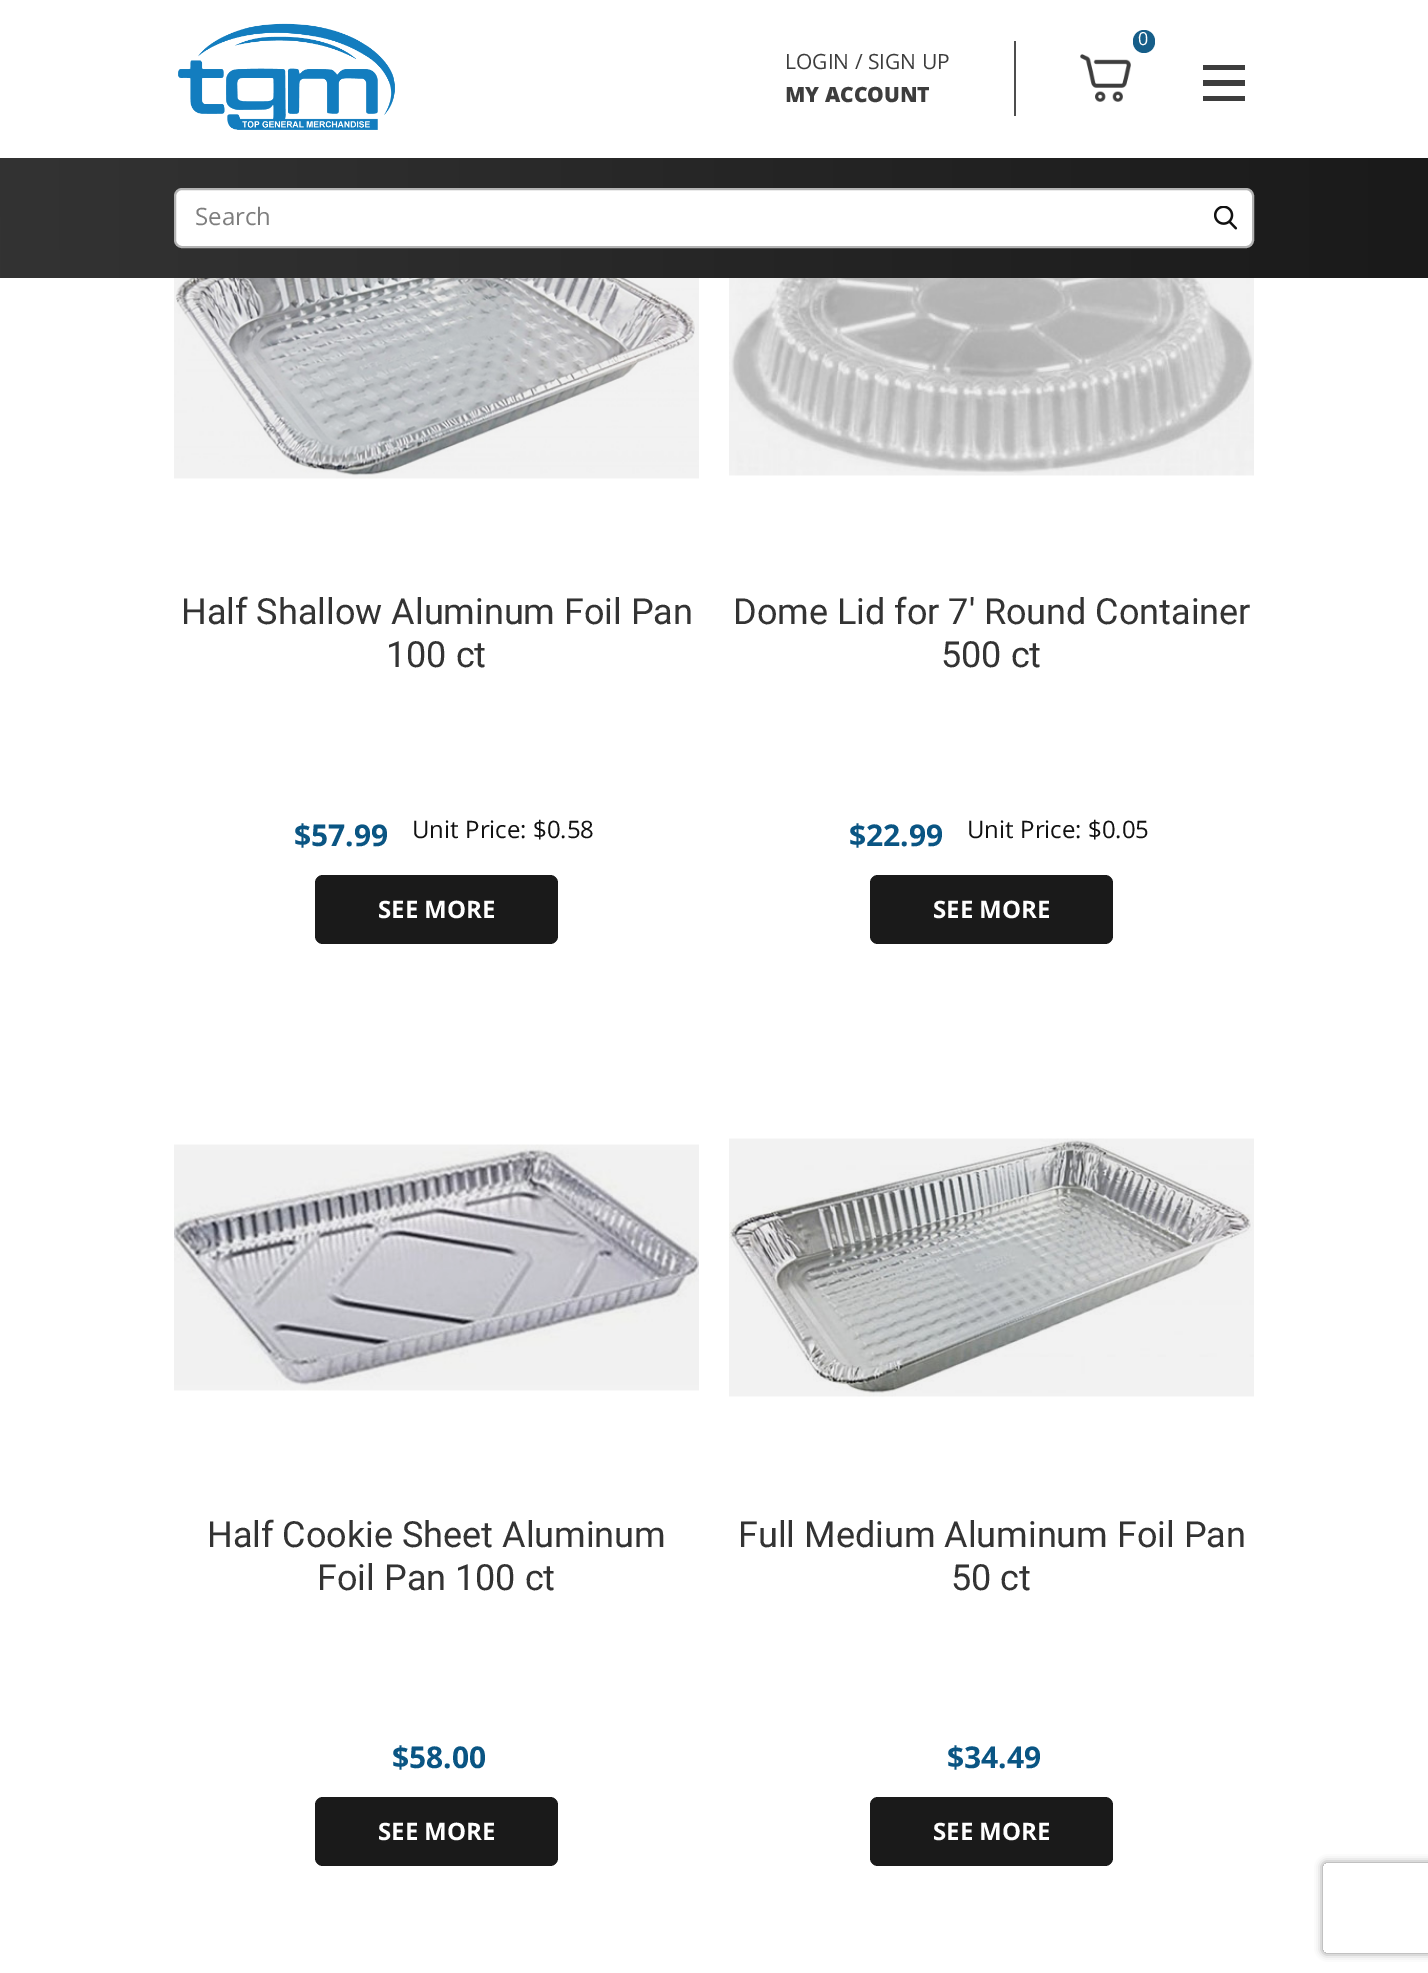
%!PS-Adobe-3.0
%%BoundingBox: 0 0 1428 1973
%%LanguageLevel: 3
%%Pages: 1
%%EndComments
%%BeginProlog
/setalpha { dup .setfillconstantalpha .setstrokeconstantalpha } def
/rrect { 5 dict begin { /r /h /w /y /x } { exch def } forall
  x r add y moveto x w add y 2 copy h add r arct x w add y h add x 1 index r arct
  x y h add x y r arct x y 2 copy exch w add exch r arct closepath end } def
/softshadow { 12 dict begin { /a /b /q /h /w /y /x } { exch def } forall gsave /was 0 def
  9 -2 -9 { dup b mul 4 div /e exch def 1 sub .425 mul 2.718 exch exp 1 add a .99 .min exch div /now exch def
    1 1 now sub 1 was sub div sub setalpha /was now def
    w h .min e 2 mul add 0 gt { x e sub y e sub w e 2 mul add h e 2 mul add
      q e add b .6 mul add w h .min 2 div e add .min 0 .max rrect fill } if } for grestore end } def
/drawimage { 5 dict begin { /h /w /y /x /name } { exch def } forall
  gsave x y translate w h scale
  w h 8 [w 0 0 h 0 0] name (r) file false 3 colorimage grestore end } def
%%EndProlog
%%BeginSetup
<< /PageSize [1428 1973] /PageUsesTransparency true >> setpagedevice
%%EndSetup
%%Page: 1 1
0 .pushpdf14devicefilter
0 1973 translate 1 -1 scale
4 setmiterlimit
1 setgray
0 0 1428 1973 rectfill
(images/1.raw) 178 23 217 107 drawimage
0.086 0.369 0.537 setrgbcolor
1133 30 22 23 11 rrect fill
(images/2.raw) 1080 54 51 48 drawimage
0.306 setgray
1014 41 2 75 rectfill
0.239 setgray
1203 65 42 5 rectfill
1203 80 42 6 rectfill
1203 96 42 5 rectfill
gsave newpath 0 158 moveto 1428 158 lineto 1428 278 lineto 0 278 lineto closepath clip newpath
<< /ShadingType 2 /ColorSpace /DeviceRGB /Coords [0 218 1428 217] /Extend [true true] /Function << /FunctionType 2 /Domain [0 1] /C0 [0.2 0.2 0.2] /C1 [0.102 0.102 0.102] /N 1 >> >> shfill grestore
1 setgray
175 189 1078 58 7 rrect gsave fill grestore
0.702 setgray
2 setlinewidth
stroke
(images/3.raw) 1214 206 24 24 drawimage
(images/4.raw) 174 278 525 201 drawimage
0.102 setgray
315 875 243 69 8 rrect fill
(images/5.raw) 729 278 525 198 drawimage
870 875 243 69 8 rrect fill
(images/6.raw) 174 1144 525 247 drawimage
315 1797 243 69 8 rrect fill
(images/7.raw) 729 1138 525 259 drawimage
870 1797 243 69 8 rrect fill
gsave
newpath 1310 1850 moveto 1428 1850 lineto 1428 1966 lineto 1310 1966 lineto closepath 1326 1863 moveto 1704 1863 lineto 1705.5 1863 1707 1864.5 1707 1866 curveto 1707 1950 lineto 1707 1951.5 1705.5 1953 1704 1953 curveto 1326 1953 lineto 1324.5 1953 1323 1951.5 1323 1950 curveto 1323 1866 lineto 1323 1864.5 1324.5 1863 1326 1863 curveto closepath eoclip newpath
0.502 setgray
1323 1863 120 90 3 4 1 softshadow
grestore
/OpenSans-Regular [18 0 0 -18 0 0] selectfont
1 setgray
1138 45 moveto (0) show
/OpenSans-Regular [21 0 0 -21 0 0] selectfont
0.239 setgray
785 69 moveto (LOGIN / SIGN UP) show
/OpenSans-ExtraBold [21 0 0 -21 0 0] selectfont
785 102 moveto (MY ACCOUNT) show
/OpenSans-Regular [24 0 0 -24 0 0] selectfont
0.494 setgray
195 225 moveto (Search) show
/Roboto-Regular [36 0 0 -36 0 0] selectfont
0.2 setgray
181 624 moveto (Half Shallow Aluminum Foil Pan) show
386 667 moveto (100 ct) show
/OpenSans-Bold [30 0 0 -30 0 0] selectfont
0.039 0.333 0.514 setrgbcolor
294 846 moveto ($57.99) show
/OpenSans-Regular [24 0 0 -24 0 0] selectfont
0.067 setgray
412 838 moveto (Unit Price: $0.58) show
/OpenSans-Bold [24 0 0 -24 0 0] selectfont
1 setgray
378 918 moveto (SEE MORE) show
/Roboto-Regular [36 0 0 -36 0 0] selectfont
0.2 setgray
733 624 moveto (Dome Lid for 7' Round Container) show
941 667 moveto (500 ct) show
/OpenSans-Bold [30 0 0 -30 0 0] selectfont
0.039 0.333 0.514 setrgbcolor
849 846 moveto ($22.99) show
/OpenSans-Regular [24 0 0 -24 0 0] selectfont
0.067 setgray
967 838 moveto (Unit Price: $0.05) show
/OpenSans-Bold [24 0 0 -24 0 0] selectfont
1 setgray
933 918 moveto (SEE MORE) show
/Roboto-Regular [36 0 0 -36 0 0] selectfont
0.2 setgray
207 1547 moveto (Half Cookie Sheet Aluminum) show
317 1590 moveto (Foil Pan 100 ct) show
/OpenSans-Bold [30 0 0 -30 0 0] selectfont
0.039 0.333 0.514 setrgbcolor
392 1768 moveto ($58.00) show
/OpenSans-Bold [24 0 0 -24 0 0] selectfont
1 setgray
378 1840 moveto (SEE MORE) show
/Roboto-Regular [36 0 0 -36 0 0] selectfont
0.2 setgray
738 1547 moveto (Full Medium Aluminum Foil Pan) show
951 1590 moveto (50 ct) show
/OpenSans-Bold [30 0 0 -30 0 0] selectfont
0.039 0.333 0.514 setrgbcolor
947 1768 moveto ($34.49) show
/OpenSans-Bold [24 0 0 -24 0 0] selectfont
1 setgray
933 1840 moveto (SEE MORE) show
.poppdf14devicefilter showpage
%%EOF
